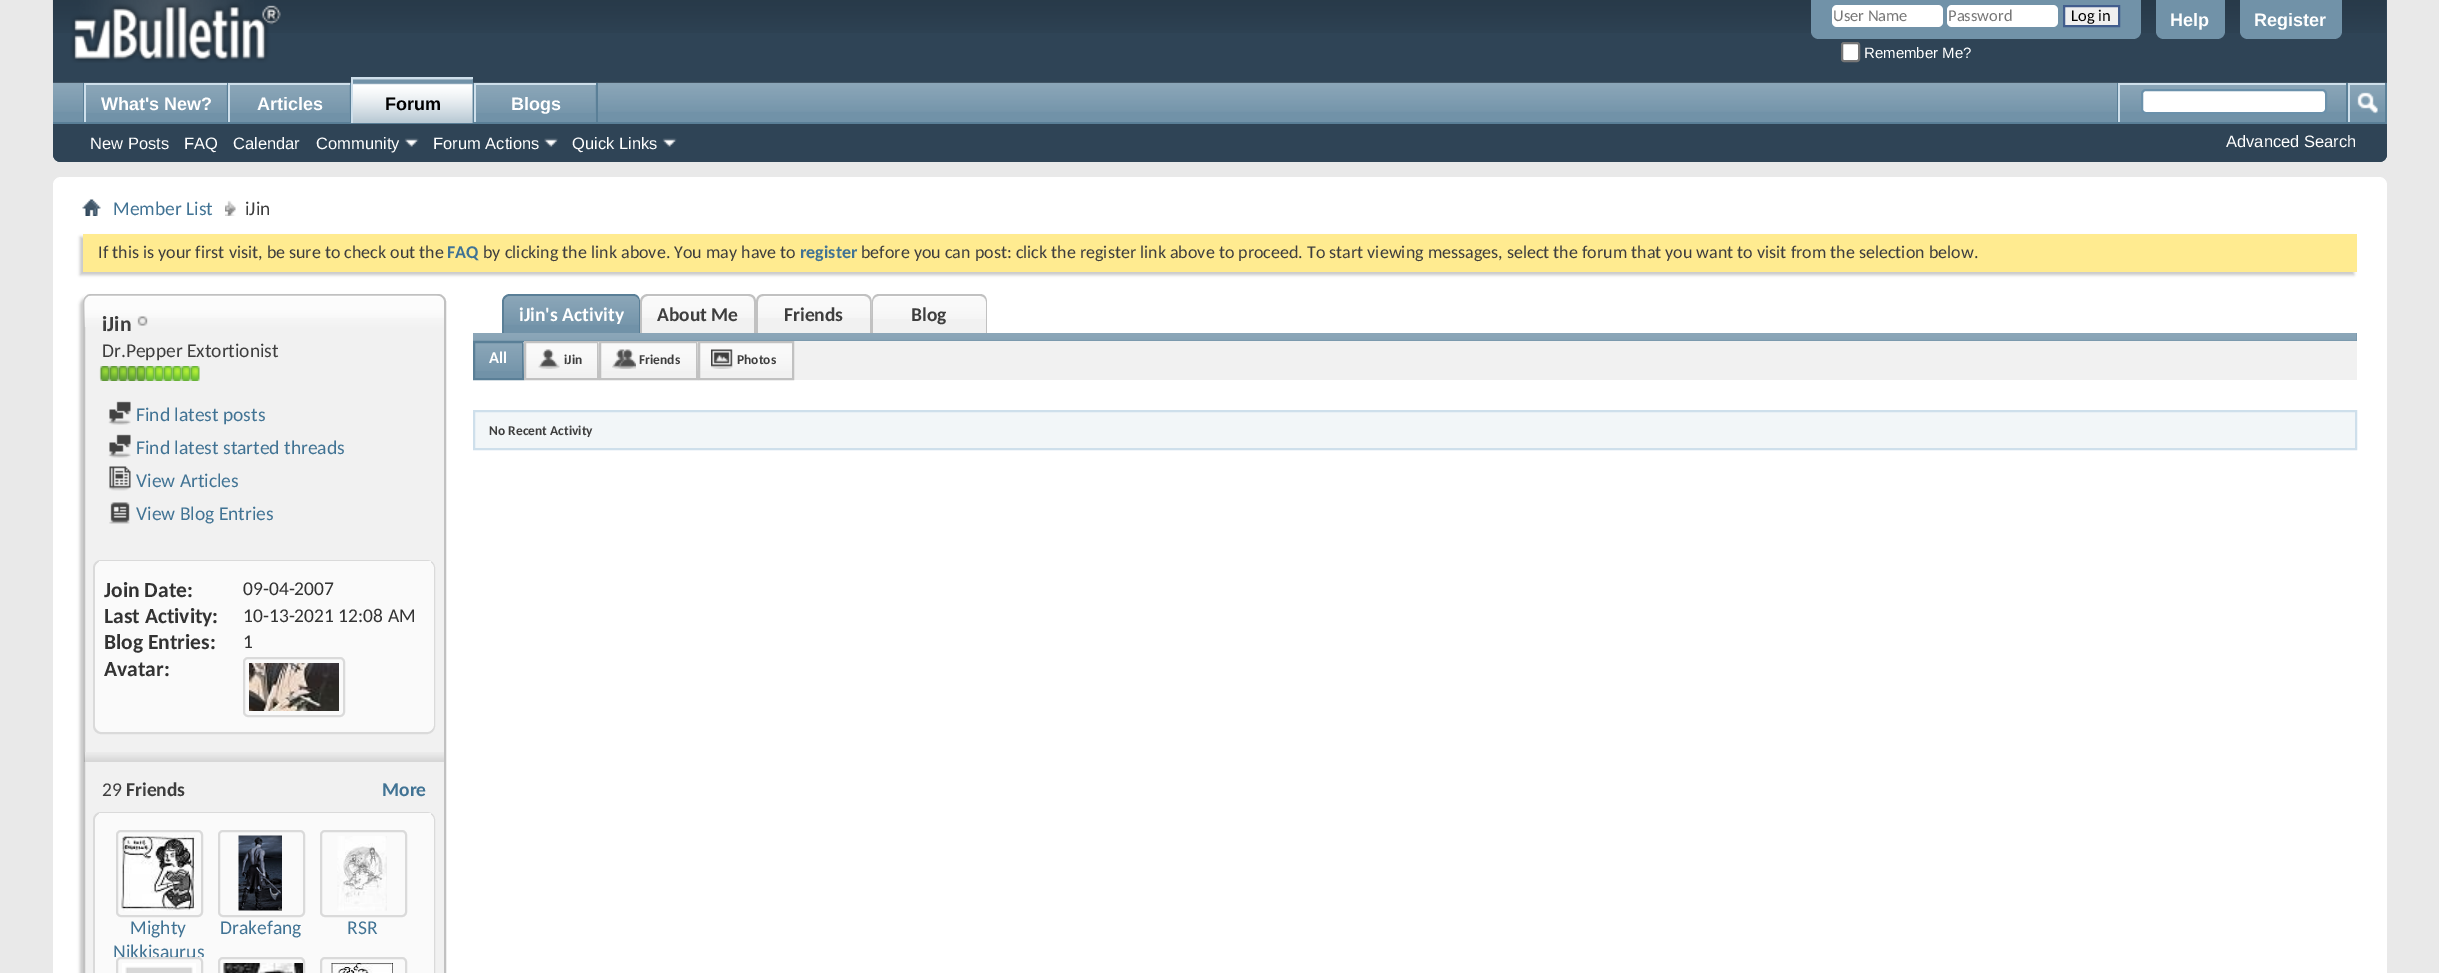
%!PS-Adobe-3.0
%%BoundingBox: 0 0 2439 973
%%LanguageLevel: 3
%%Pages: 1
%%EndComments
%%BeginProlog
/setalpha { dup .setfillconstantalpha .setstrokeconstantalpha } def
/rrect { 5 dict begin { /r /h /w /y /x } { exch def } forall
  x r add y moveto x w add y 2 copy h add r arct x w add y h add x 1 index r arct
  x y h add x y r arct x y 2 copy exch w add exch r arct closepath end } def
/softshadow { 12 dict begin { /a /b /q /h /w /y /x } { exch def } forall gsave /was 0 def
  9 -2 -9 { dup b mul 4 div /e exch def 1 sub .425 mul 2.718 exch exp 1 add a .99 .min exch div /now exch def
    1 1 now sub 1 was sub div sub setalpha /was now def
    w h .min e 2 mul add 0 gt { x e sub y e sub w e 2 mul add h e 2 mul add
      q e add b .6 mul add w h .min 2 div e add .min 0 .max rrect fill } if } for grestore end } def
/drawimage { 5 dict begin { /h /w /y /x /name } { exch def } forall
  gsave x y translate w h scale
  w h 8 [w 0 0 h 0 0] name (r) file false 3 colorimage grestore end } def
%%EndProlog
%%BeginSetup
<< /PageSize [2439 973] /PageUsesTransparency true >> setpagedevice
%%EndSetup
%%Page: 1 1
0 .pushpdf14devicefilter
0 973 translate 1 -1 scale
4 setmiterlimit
0.914 setgray
0 0 2439 973 rectfill
0.184 0.267 0.337 setrgbcolor
newpath 53 0 moveto 2387 0 lineto 2387 154 lineto 2387 158.5 2383.5 162 2379 162 curveto 61 162 lineto 56.5 162 53 158.5 53 154 curveto closepath fill
(images/1.raw) 52 0 2334 33 drawimage
(images/2.raw) 70 0 211 63 drawimage
0.443 0.573 0.659 setrgbcolor
newpath 1811 0 moveto 2141 0 lineto 2141 31 lineto 2141 35.5 2137.5 39 2133 39 curveto 1819 39 lineto 1814.5 39 1811 35.5 1811 31 curveto closepath fill
1 setgray
1832 5 111 22 5 rrect fill
1947 5 111 22 5 rrect fill
0.937 setgray
newpath 2064 6 moveto 2119 6 lineto 2119 26 lineto 2064 26 lineto closepath gsave fill grestore
0.255 0.365 0.553 setrgbcolor
2 setlinewidth
stroke
1 setgray
1842 43 17 18 2 rrect gsave fill grestore
0.463 setgray
stroke
0.443 0.573 0.659 setrgbcolor
newpath 2156 0 moveto 2225 0 lineto 2225 31 lineto 2225 35.5 2221.5 39 2217 39 curveto 2164 39 lineto 2159.5 39 2156 35.5 2156 31 curveto closepath fill
newpath 2240 0 moveto 2342 0 lineto 2342 31 lineto 2342 35.5 2338.5 39 2334 39 curveto 2248 39 lineto 2243.5 39 2240 35.5 2240 31 curveto closepath fill
0.184 0.267 0.337 setrgbcolor
newpath 53 83 moveto 2387 83 lineto 2387 154 lineto 2387 158.5 2383.5 162 2379 162 curveto 61 162 lineto 56.5 162 53 158.5 53 154 curveto closepath fill
0.443 0.573 0.659 setrgbcolor
53 83 2332 39 rectfill
(images/3.raw) 53 82 2334 30 drawimage
0.353 0.498 0.592 setrgbcolor
227 83 1 40 rectfill
83 83 1 40 rectfill
0.443 0.573 0.659 setrgbcolor
86 85 141 27 rectfill
(images/4.raw) 86 85 141 28 drawimage
0.808 0.875 0.922 setrgbcolor
84 83 143 2 rectfill
84 83 2 40 rectfill
0.353 0.498 0.592 setrgbcolor
350 83 1 40 rectfill
0.443 0.573 0.659 setrgbcolor
230 85 120 27 rectfill
(images/5.raw) 230 85 120 28 drawimage
0.808 0.875 0.922 setrgbcolor
228 83 122 2 rectfill
228 83 2 40 rectfill
0.353 0.498 0.592 setrgbcolor
473 83 1 39 rectfill
596 83 2 40 rectfill
0.808 0.875 0.922 setrgbcolor
474 83 122 2 rectfill
474 83 2 40 rectfill
0.353 0.498 0.592 setrgbcolor
53 122 2334 2 rectfill
0.443 0.573 0.659 setrgbcolor
353 79 120 44 rectfill
(images/6.raw) 353 79 120 44 drawimage
0.808 0.875 0.922 setrgbcolor
351 77 122 2 rectfill
351 77 2 46 rectfill
0.443 0.573 0.659 setrgbcolor
476 85 120 27 rectfill
(images/5.raw) 476 85 120 28 drawimage
(images/7.raw) 404 138 15 9 drawimage
(images/8.raw) 544 138 14 9 drawimage
(images/9.raw) 662 138 15 9 drawimage
0.353 0.498 0.592 setrgbcolor
2117 83 1 39 rectfill
0.808 0.875 0.922 setrgbcolor
2118 83 228 2 rectfill
2118 83 2 39 rectfill
1 setgray
2142 90 184 23 4 rrect gsave fill grestore
0.42 0.569 0.671 setrgbcolor
stroke
0.353 0.498 0.592 setrgbcolor
2385 83 2 39 rectfill
2346 83 2 39 rectfill
0.808 0.875 0.922 setrgbcolor
2348 83 37 2 rectfill
2348 83 2 39 rectfill
(images/10.raw) 2357 92 21 22 drawimage
1 setgray
53 177 2334 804 8 rrect fill
(images/11.raw) 82 199 19 17 drawimage
(images/12.raw) 225 200 11 16 drawimage
0.784 setgray
80 237 2274 38 0 1.5 1 softshadow
1 0.922 0.565 setrgbcolor
83 234 2274 38 rectfill
0.784 setgray
80 297 363 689 8 1.5 1 softshadow
0.945 setgray
83 294 363 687 8 rrect fill
(images/13.raw) 83 295 362 23 drawimage
0.757 setgray
84 295 361 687 7 rrect stroke
(images/14.raw) 84 295 360 32 drawimage
(images/15.raw) 137 316 11 10 drawimage
(images/16.raw) 99 366 11 15 drawimage
(images/17.raw) 109 366 10 15 drawimage
(images/17.raw) 118 366 10 15 drawimage
(images/17.raw) 127 366 10 15 drawimage
(images/17.raw) 136 366 10 15 drawimage
(images/18.raw) 145 366 10 15 drawimage
(images/19.raw) 154 366 10 15 drawimage
(images/19.raw) 163 366 10 15 drawimage
(images/19.raw) 172 366 10 15 drawimage
(images/19.raw) 181 366 10 15 drawimage
(images/19.raw) 190 366 10 15 drawimage
(images/20.raw) 108 401 23 24 drawimage
(images/20.raw) 108 434 23 24 drawimage
(images/21.raw) 108 466 23 25 drawimage
(images/22.raw) 109 502 21 22 drawimage
0.855 setgray
94 561 340 172 7 rrect stroke
0.98 setgray
95 561 339 171 8 rrect fill
99 561 332 2 rectfill
0.855 setgray
244 658 100 58 4 rrect stroke
(images/23.raw) 249 663 90 48 drawimage
(images/24.raw) 84 752 360 10 drawimage
94 813 340 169 7 rrect stroke
0.98 setgray
95 813 339 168 8 rrect fill
99 813 332 2 rectfill
0.855 setgray
117 831 85 85 4 rrect stroke
(images/25.raw) 121 835 74 76 drawimage
219 831 85 85 4 rrect stroke
(images/26.raw) 238 835 44 76 drawimage
321 831 85 85 4 rrect stroke
(images/27.raw) 337 836 50 75 drawimage
117 958 85 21 4 rrect stroke
(images/28.raw) 122 963 74 10 drawimage
219 958 85 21 4 rrect stroke
(images/29.raw) 223 963 80 10 drawimage
321 958 85 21 4 rrect stroke
(images/30.raw) 331 963 62 10 drawimage
0.443 0.573 0.659 setrgbcolor
newpath 510 296 moveto 633 296 lineto 636.5 296 639 298.5 639 302 curveto 639 333 lineto 504 333 lineto 504 302 lineto 504 298.5 506.5 296 510 296 curveto closepath fill
(images/31.raw) 504 296 135 29 drawimage
0.353 0.498 0.592 setrgbcolor
newpath 510 294 moveto 633 294 lineto 637 294 640 297 640 302 curveto 640 333 lineto 502 333 lineto 502 302 lineto 502 297 506 294 510 294 curveto closepath 510 296 moveto 633 296 lineto 636 296 639 298 639 302 curveto 639 333 lineto 504 333 lineto 504 302 lineto 504 298 507 296 510 296 curveto closepath eofill
0.945 setgray
newpath 648 296 moveto 749 296 lineto 752.5 296 755 298.5 755 302 curveto 755 333 lineto 642 333 lineto 642 302 lineto 642 298.5 644.5 296 648 296 curveto closepath fill
(images/32.raw) 642 296 113 22 drawimage
0.757 setgray
newpath 648 294 moveto 748 294 lineto 753 294 756 297 756 302 curveto 756 333 lineto 640 333 lineto 640 302 lineto 640 297 644 294 648 294 curveto closepath 648 296 moveto 748 296 lineto 752 296 754 298 754 302 curveto 754 333 lineto 642 333 lineto 642 302 lineto 642 298 645 296 648 296 curveto closepath eofill
0.945 setgray
newpath 764 296 moveto 864 296 lineto 867.5 296 870 298.5 870 302 curveto 870 333 lineto 758 333 lineto 758 302 lineto 758 298.5 760.5 296 764 296 curveto closepath fill
(images/33.raw) 758 296 112 22 drawimage
0.757 setgray
newpath 764 294 moveto 864 294 lineto 868 294 872 297 872 302 curveto 872 333 lineto 756 333 lineto 756 302 lineto 756 297 759 294 764 294 curveto closepath 764 296 moveto 864 296 lineto 867 296 870 298 870 302 curveto 870 333 lineto 758 333 lineto 758 302 lineto 758 298 760 296 764 296 curveto closepath eofill
0.945 setgray
newpath 879 296 moveto 980 296 lineto 983.5 296 986 298.5 986 302 curveto 986 333 lineto 873 333 lineto 873 302 lineto 873 298.5 875.5 296 879 296 curveto closepath fill
(images/34.raw) 871 296 115 23 drawimage
0.757 setgray
newpath 879 294 moveto 980 294 lineto 984 294 987 297 987 302 curveto 987 333 lineto 872 333 lineto 872 302 lineto 872 297 875 294 879 294 curveto closepath 879 296 moveto 980 296 lineto 983 296 986 298 986 302 curveto 986 333 lineto 873 333 lineto 873 302 lineto 873 298 876 296 879 296 curveto closepath eofill
0.443 0.573 0.659 setrgbcolor
473 333 1884 8 rectfill
(images/35.raw) 473 333 1884 8 drawimage
0.945 setgray
526 341 1831 39 rectfill
0.443 0.573 0.659 setrgbcolor
475 343 47 35 rectfill
(images/36.raw) 475 343 47 28 drawimage
0.353 0.498 0.592 setrgbcolor
474 342 49 37 rectstroke
(images/37.raw) 523 342 74 32 drawimage
0.757 setgray
525 342 73 37 rectstroke
(images/38.raw) 538 349 22 20 drawimage
(images/39.raw) 598 342 98 29 drawimage
600 342 97 37 rectstroke
(images/40.raw) 612 349 24 20 drawimage
(images/41.raw) 697 342 95 29 drawimage
699 342 94 37 rectstroke
(images/42.raw) 711 349 22 20 drawimage
0.949 0.965 0.973 setrgbcolor
newpath 474 411 moveto 2356 411 lineto 2356 449 lineto 474 449 lineto closepath gsave fill grestore
0.808 0.875 0.922 setrgbcolor
stroke
/Carlito-Regular [16.5 0 0 -16.5 0 0] selectfont
0.467 setgray
1833 21 moveto (User Name) show
1948 21 moveto (Password) show
0 setgray
2071 21 moveto (Log in) show
/LiberationSans-Regular [15 0 0 -15 0 0] selectfont
1 setgray
1864 58 moveto (Remember Me?) show
/LiberationSans-Bold [18 0 0 -18 0 0] selectfont
2170 26 moveto (Help) show
2254 26 moveto (Register) show
101 110 moveto (What's New?) show
257 110 moveto (Articles) show
0 setgray
385 110 moveto (Forum) show
1 setgray
511 110 moveto (Blogs) show
/LiberationSans-Regular [16.5 0 0 -16.5 0 0] selectfont
90 149 moveto (New Posts) show
184 149 moveto (FAQ) show
233 149 moveto (Calendar) show
316 149 moveto (Community) show
433 149 moveto (Forum Actions) show
572 149 moveto (Quick Links) show
2226 147 moveto (Advanced Search) show
/Carlito-Regular [19.5 0 0 -19.5 0 0] selectfont
0.255 0.451 0.58 setrgbcolor
113 215 moveto (Member List) show
0.243 setgray
245 215 moveto (iJin) show
/Carlito-Regular [18 0 0 -18 0 0] selectfont
98 258 moveto (If this is your first visit, be sure to check out the) show
/Carlito-Bold [18 0 0 -18 0 0] selectfont
0.255 0.451 0.58 setrgbcolor
447 258 moveto (FAQ) show
/Carlito-Regular [18 0 0 -18 0 0] selectfont
0.243 setgray
483 258 moveto (by clicking the link above. You may have to) show
/Carlito-Bold [18 0 0 -18 0 0] selectfont
0.255 0.451 0.58 setrgbcolor
800 258 moveto (register) show
/Carlito-Regular [18 0 0 -18 0 0] selectfont
0.243 setgray
861 258 moveto (before you can post: click the register link above to proceed. To start viewing messages, select the forum that you want to visit from the selection below.) show
/Carlito-Bold [21.5 0 0 -21.5 0 0] selectfont
102 331 moveto (iJin) show
/Carlito-Regular [19.5 0 0 -19.5 0 0] selectfont
102 357 moveto (Dr.Pepper Extortionist) show
0.255 0.451 0.58 setrgbcolor
136 421 moveto (Find latest posts) show
136 454 moveto (Find latest started threads) show
136 487 moveto (View Articles) show
136 520 moveto (View Blog Entries) show
/Carlito-Bold [21.5 0 0 -21.5 0 0] selectfont
0.2 setgray
104 597 moveto (Join Date:) show
/Carlito-Regular [19.5 0 0 -19.5 0 0] selectfont
243 595 moveto (09-04-2007) show
/Carlito-Bold [21.5 0 0 -21.5 0 0] selectfont
104 623 moveto (Last Activity:) show
/Carlito-Regular [19.5 0 0 -19.5 0 0] selectfont
243 622 moveto (10-13-2021 12:08 AM) show
/Carlito-Bold [21.5 0 0 -21.5 0 0] selectfont
104 649 moveto (Blog Entries:) show
/Carlito-Regular [19.5 0 0 -19.5 0 0] selectfont
243 648 moveto (1) show
/Carlito-Bold [21.5 0 0 -21.5 0 0] selectfont
104 676 moveto (Avatar:) show
/Carlito-Regular [19.5 0 0 -19.5 0 0] selectfont
0.243 setgray
102 796 moveto (29) show
/Carlito-Bold [19.5 0 0 -19.5 0 0] selectfont
126 796 moveto (Friends) show
0.255 0.451 0.58 setrgbcolor
382 796 moveto (More) show
/Carlito-Regular [19.5 0 0 -19.5 0 0] selectfont
130 934 moveto (Mighty) show
gsave
111 830 95 127 rectclip
113 958 moveto (Nikkisaurus) show
grestore
220 934 moveto (Drakefang) show
347 934 moveto (RSR) show
/Carlito-Bold [19.5 0 0 -19.5 0 0] selectfont
1 setgray
519 321 moveto (iJin's Activity) show
0.243 setgray
657 321 moveto (About Me) show
784 321 moveto (Friends) show
911 321 moveto (Blog) show
/Carlito-Bold [16.5 0 0 -16.5 0 0] selectfont
1 setgray
489 363 moveto (All) show
/Carlito-Bold [13.5 0 0 -13.5 0 0] selectfont
0.243 setgray
564 364 moveto (iJin) show
639 364 moveto (Friends) show
737 364 moveto (Photos) show
489 435 moveto (No Recent Activity) show
.poppdf14devicefilter showpage
%%EOF
